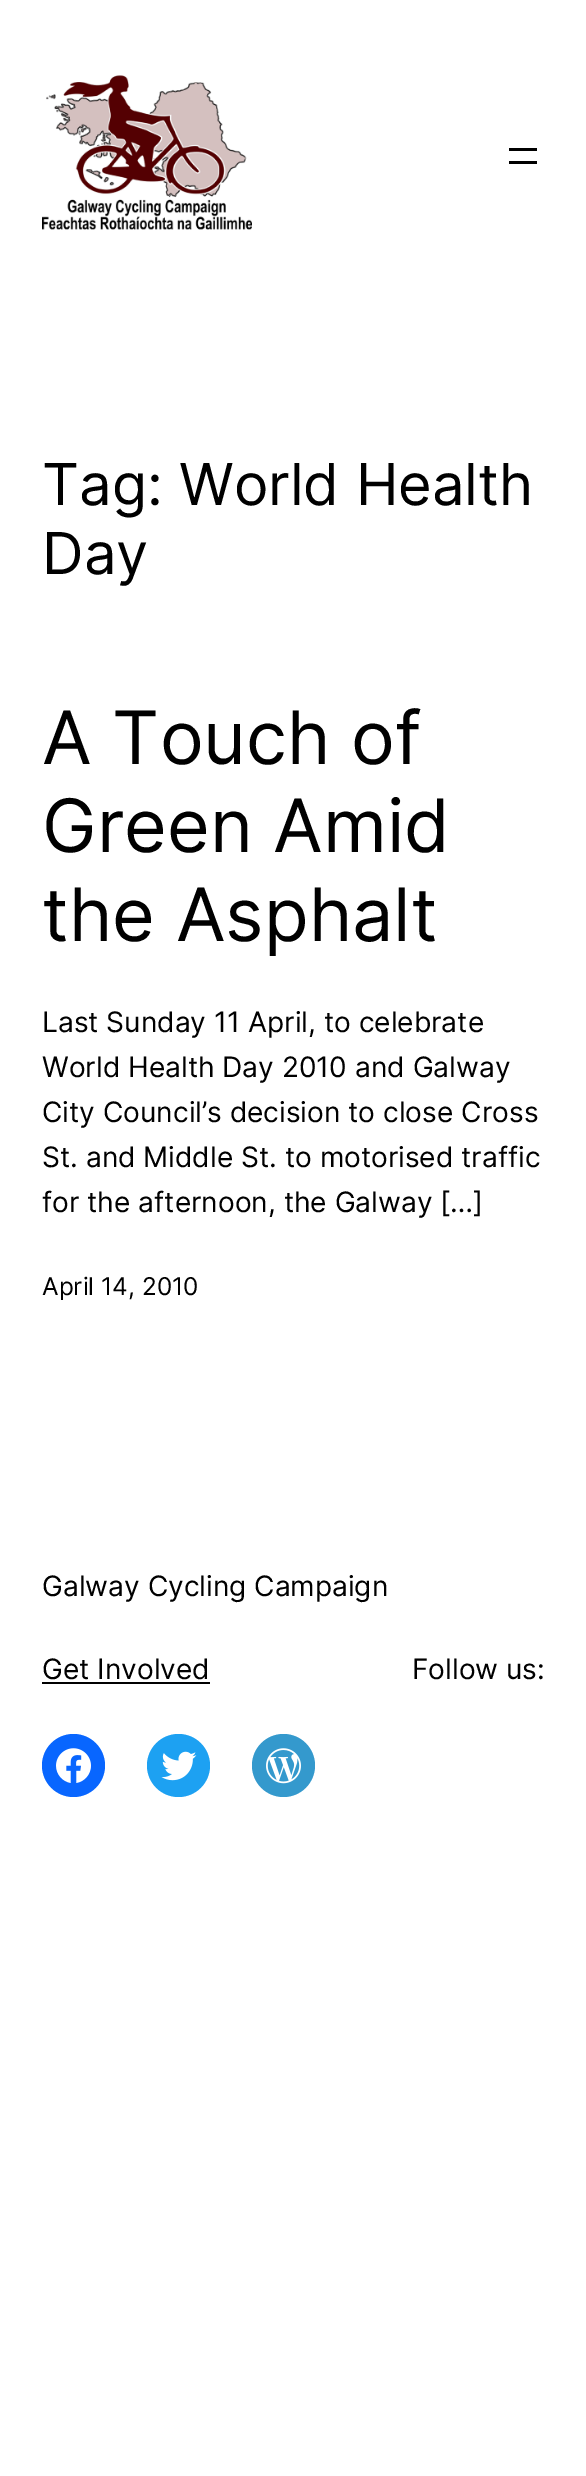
%!PS-Adobe-3.0
%%BoundingBox: 0 0 586 2476
%%LanguageLevel: 3
%%Pages: 1
%%EndComments
%%BeginProlog
/drawimage { 5 dict begin { /h /w /y /x /name } { exch def } forall
  gsave x y translate w h scale
  w h 8 [w 0 0 h 0 0] name (r) file false 3 colorimage grestore end } def
%%EndProlog
%%BeginSetup
<< /PageSize [586 2476] >> setpagedevice
%%EndSetup
%%Page: 1 1
0 2476 translate 1 -1 scale
4 setmiterlimit
1 setgray
0 0 586 2476 rectfill
(images/1.raw) 42 75 210 155 drawimage
0 setgray
509 148 28 3 rectfill
509 161 28 3 rectfill
42 1682 168 2 rectfill
0.031 0.4 1 setrgbcolor
newpath 73.5 1765.5 31.5 0 360 arc closepath fill
(images/2.raw) 56 1748 35 35 drawimage
0.114 0.631 0.949 setrgbcolor
newpath 178.5 1765.5 31.5 0 360 arc closepath fill
(images/3.raw) 161 1751 36 30 drawimage
0.204 0.6 0.804 setrgbcolor
newpath 283.5 1765.5 31.5 0 360 arc closepath fill
(images/4.raw) 266 1748 35 36 drawimage
/Inter-Regular [57.75 0 0 -57.75 0 0] selectfont
0 setgray
42 505 moveto (Tag: World Health) show
42 574 moveto (Day) show
/Inter-Regular [73.5 0 0 -73.5 0 0] selectfont
42 764 moveto (A Touch of) show
42 852 moveto (Green Amid) show
42 941 moveto (the Asphalt) show
/Inter-Regular [28.1 0 0 -28.1 0 0] selectfont
42 1032 moveto (Last Sunday 11 April, to celebrate) show
42 1077 moveto (World Health Day 2010 and Galway) show
42 1122 moveto (City Council’s decision to close Cross) show
42 1167 moveto (St. and Middle St. to motorised traffic) show
42 1212 moveto (for the afternoon, the Galway […]) show
/Inter-Regular [24.5 0 0 -24.5 0 0] selectfont
42 1295 moveto (April 14, 2010) show
/Inter-Regular [28.1 0 0 -28.1 0 0] selectfont
42 1596 moveto (Galway Cycling Campaign) show
42 1679 moveto (Get Involved) show
412 1679 moveto (Follow us:) show
showpage
%%EOF
